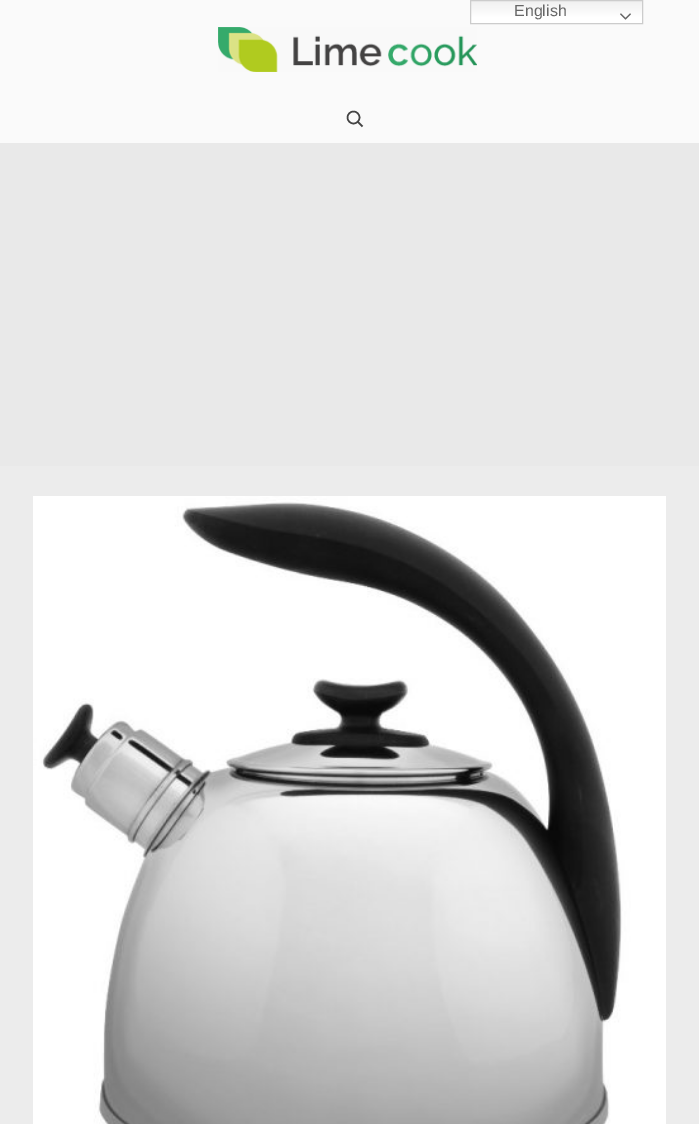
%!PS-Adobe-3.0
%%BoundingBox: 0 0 699 1124
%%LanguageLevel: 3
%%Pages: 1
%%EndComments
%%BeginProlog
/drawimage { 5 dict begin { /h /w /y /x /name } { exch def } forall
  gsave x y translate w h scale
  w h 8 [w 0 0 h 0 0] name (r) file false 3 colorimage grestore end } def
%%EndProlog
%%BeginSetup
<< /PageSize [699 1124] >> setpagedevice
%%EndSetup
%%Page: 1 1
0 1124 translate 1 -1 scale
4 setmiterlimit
0.98 setgray
0 0 699 1124 rectfill
gsave newpath 471 1 moveto 642 1 lineto 642 23 lineto 471 23 lineto closepath clip newpath
<< /ShadingType 2 /ColorSpace /DeviceRGB /Coords [557 0 557 24] /Extend [true true] /Function << /FunctionType 3 /Domain [0 1] /Functions [<< /FunctionType 2 /Domain [0 1] /C0 [0.937 0.937 0.937] /C1 [1 1 1] /N 1 >> << /FunctionType 2 /Domain [0 1] /C0 [1 1 1] /C1 [1 1 1] /N 1 >>] /Bounds [0.7] /Encode [0 1 0 1] >> >> shfill grestore
0.8 setgray
470.5 0.5 172 23 rectstroke
(images/1.raw) 620 13 11 7 drawimage
0.925 setgray
0 466 699 658 rectfill
(images/2.raw) 218 27 259 45 drawimage
0.267 setgray
1.5 setlinewidth
newpath 353.5 117.5 6 0 360 arc closepath stroke
newpath 357.5 121.5 moveto 362.5 126.5 lineto stroke
0.914 setgray
0 143 699 323 rectfill
(images/3.raw) 33 496 633 628 drawimage
/LiberationSans-Regular [16 0 0 -16 0 0] selectfont
0.4 setgray
514 16 moveto (English) show
showpage
%%EOF
